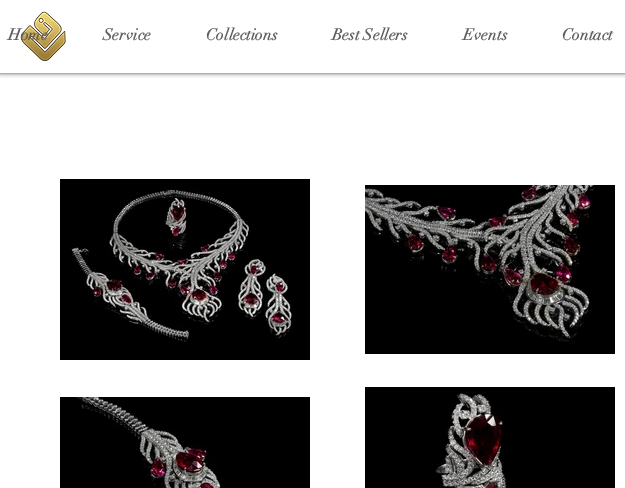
%!PS-Adobe-3.0
%%BoundingBox: 0 0 625 488
%%LanguageLevel: 3
%%Pages: 1
%%EndComments
%%BeginProlog
/setalpha { dup .setfillconstantalpha .setstrokeconstantalpha } def
/rrect { 5 dict begin { /r /h /w /y /x } { exch def } forall
  x r add y moveto x w add y 2 copy h add r arct x w add y h add x 1 index r arct
  x y h add x y r arct x y 2 copy exch w add exch r arct closepath end } def
/softshadow { 12 dict begin { /a /b /q /h /w /y /x } { exch def } forall gsave /was 0 def
  9 -2 -9 { dup b mul 4 div /e exch def 1 sub .425 mul 2.718 exch exp 1 add a .99 .min exch div /now exch def
    1 1 now sub 1 was sub div sub setalpha /was now def
    w h .min e 2 mul add 0 gt { x e sub y e sub w e 2 mul add h e 2 mul add
      q e add b .6 mul add w h .min 2 div e add .min 0 .max rrect fill } if } for grestore end } def
/drawimage { 5 dict begin { /h /w /y /x /name } { exch def } forall
  gsave x y translate w h scale
  w h 8 [w 0 0 h 0 0] name (r) file false 3 colorimage grestore end } def
%%EndProlog
%%BeginSetup
<< /PageSize [625 488] /PageUsesTransparency true >> setpagedevice
%%EndSetup
%%Page: 1 1
0 .pushpdf14devicefilter
0 488 translate 1 -1 scale
4 setmiterlimit
1 setgray
0 0 625 488 rectfill
gsave
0 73 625 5 rectclip
0 setgray
0 0 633 73 0 2.5 0.7 softshadow
grestore
(images/1.raw) 20 11 46 50 drawimage
(images/2.raw) 60 179 250 181 drawimage
(images/3.raw) 365 185 250 169 drawimage
(images/4.raw) 60 397 250 91 drawimage
(images/5.raw) 365 387 250 101 drawimage
/didot-Bold [16 0 0 -16 0 0] selectfont
0.376 0.369 0.369 setrgbcolor
8 40 moveto (Home) show
103 40 moveto (Service) show
206 40 moveto (Collections) show
332 40 moveto (Best Sellers) show
463 40 moveto (Events) show
562 40 moveto (Contact) show
.poppdf14devicefilter showpage
%%EOF
